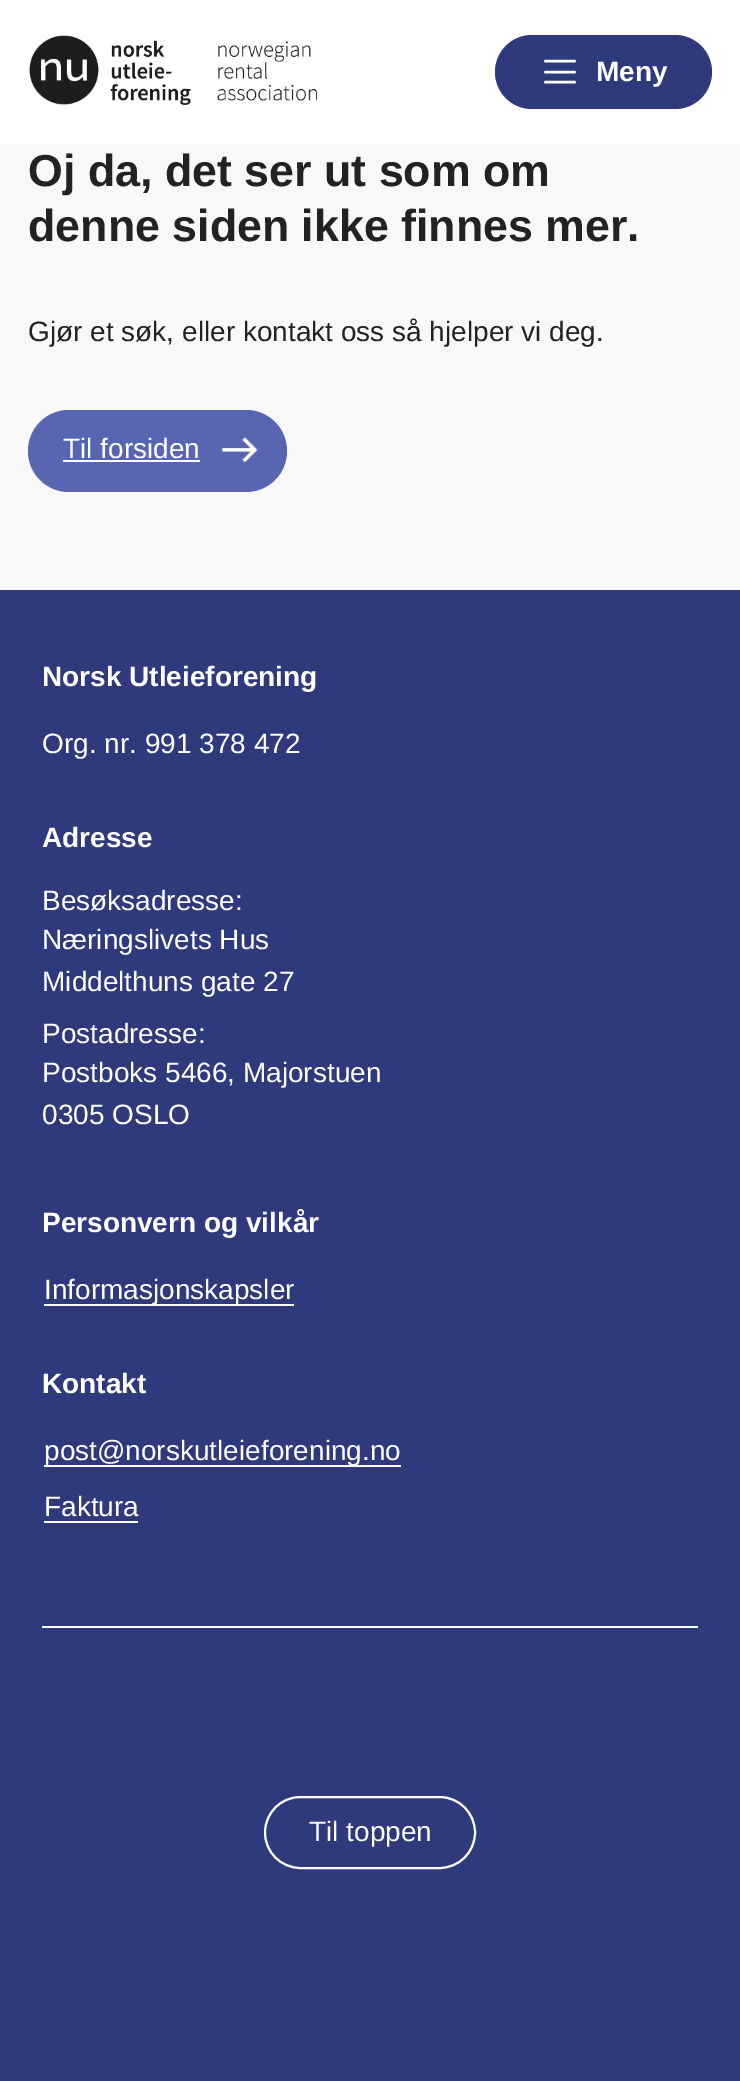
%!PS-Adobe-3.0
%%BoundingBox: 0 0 740 2081
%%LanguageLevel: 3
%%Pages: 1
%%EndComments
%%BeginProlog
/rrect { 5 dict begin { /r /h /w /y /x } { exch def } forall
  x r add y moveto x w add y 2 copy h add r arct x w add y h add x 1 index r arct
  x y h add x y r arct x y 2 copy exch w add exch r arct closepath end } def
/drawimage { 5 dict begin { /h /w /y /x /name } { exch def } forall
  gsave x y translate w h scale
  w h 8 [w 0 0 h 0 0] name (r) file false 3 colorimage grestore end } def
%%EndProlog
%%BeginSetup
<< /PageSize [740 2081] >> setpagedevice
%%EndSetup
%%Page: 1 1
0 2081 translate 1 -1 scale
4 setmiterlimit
0.18 0.227 0.482 setrgbcolor
0 0 740 2081 rectfill
0.973 setgray
0 144 740 446 rectfill
1 setgray
0 0 740 144 rectfill
(images/1.raw) 29 35 288 70 drawimage
0.18 0.227 0.482 setrgbcolor
495 35 217 74 37 rrect fill
1 setgray
2.6 setlinewidth
1 setlinecap
1 setlinejoin
newpath 545.5 72 moveto 574.5 72 lineto 545.5 61 moveto 574.5 61 lineto 545.5 82 moveto 574.5 82 lineto stroke
0.345 0.4 0.698 setrgbcolor
28 410 259 82 41 rrect fill
1 setgray
63 460 137 2 rectfill
(images/2.raw) 222 437 36 26 drawimage
42 1626 656 2 rectfill
44 1304 250 2 rectfill
44 1465 357 2 rectfill
44 1521 94 2 rectfill
2 setlinewidth
0 setlinecap
0 setlinejoin
265 1797 210 71 35.5 rrect stroke
/LiberationSans-Bold [28 0 0 -28 0 0] selectfont
596 81 moveto (Meny) show
/LiberationSans-Bold [44.75 0 0 -44.75 0 0] selectfont
0.133 setgray
28 186 moveto (Oj da, det ser ut som om) show
28 241 moveto (denne siden ikke finnes mer.) show
/LiberationSans-Regular [28 0 0 -28 0 0] selectfont
28 341 moveto (Gjør et søk, eller kontakt oss så hjelper vi deg.) show
1 setgray
63 458 moveto (Til forsiden) show
/LiberationSans-Bold [28 0 0 -28 0 0] selectfont
42 686 moveto (Norsk Utleieforening) show
/LiberationSans-Regular [28 0 0 -28 0 0] selectfont
42 753 moveto (Org. nr. 991 378 472) show
/LiberationSans-Bold [28 0 0 -28 0 0] selectfont
42 847 moveto (Adresse) show
/LiberationSans-Regular [28 0 0 -28 0 0] selectfont
42 910 moveto (Besøksadresse:) show
42 949 moveto (Næringslivets Hus) show
42 991 moveto (Middelthuns gate 27) show
42 1043 moveto (Postadresse:) show
42 1082 moveto (Postboks 5466, Majorstuen) show
42 1124 moveto (0305 OSLO) show
/LiberationSans-Bold [28 0 0 -28 0 0] selectfont
42 1232 moveto (Personvern og vilkår) show
/LiberationSans-Regular [28 0 0 -28 0 0] selectfont
44 1299 moveto (Informasjonskapsler) show
/LiberationSans-Bold [28 0 0 -28 0 0] selectfont
42 1393 moveto (Kontakt) show
/LiberationSans-Regular [28 0 0 -28 0 0] selectfont
44 1460 moveto (post@norskutleieforening.no) show
44 1516 moveto (Faktura) show
309 1841 moveto (Til toppen) show
showpage
%%EOF
